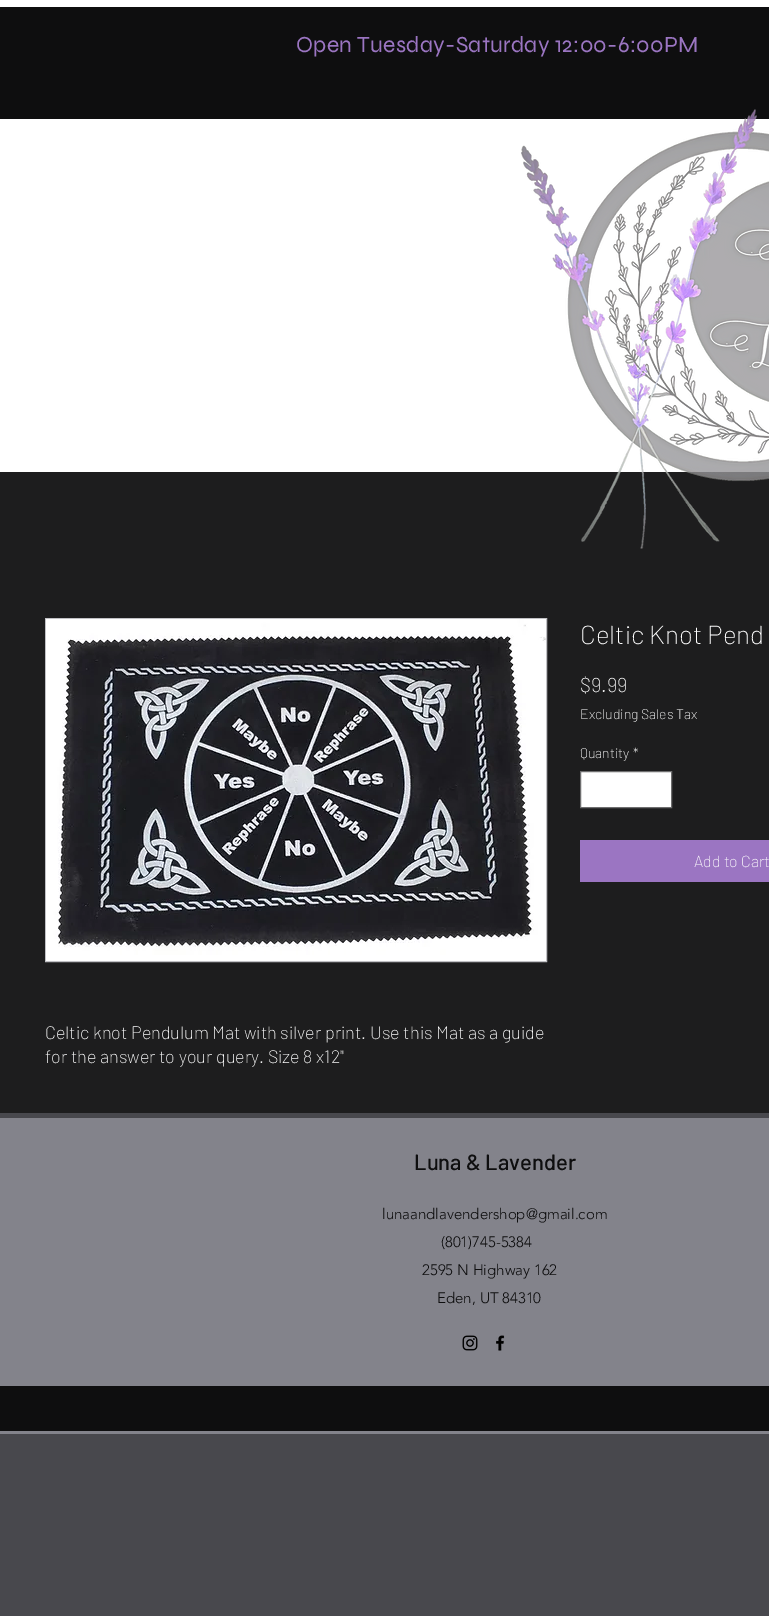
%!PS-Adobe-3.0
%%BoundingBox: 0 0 769 1616
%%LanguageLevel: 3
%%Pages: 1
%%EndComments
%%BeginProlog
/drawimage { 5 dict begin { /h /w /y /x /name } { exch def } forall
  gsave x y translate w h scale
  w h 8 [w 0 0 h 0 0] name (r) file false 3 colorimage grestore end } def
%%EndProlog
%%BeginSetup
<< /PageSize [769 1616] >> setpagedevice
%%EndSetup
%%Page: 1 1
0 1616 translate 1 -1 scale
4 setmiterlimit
0.282 0.282 0.302 setrgbcolor
0 0 769 1616 rectfill
1 setgray
0 0 769 472 rectfill
0.055 0.055 0.059 setrgbcolor
0 7 769 112 rectfill
0.114 0.114 0.118 setrgbcolor
0 472 769 641 rectfill
(images/1.raw) 521 109 248 440 drawimage
1 setgray
newpath 580.5 771.5 moveto 671.5 771.5 lineto 671.5 807.5 lineto 580.5 807.5 lineto closepath gsave fill grestore
0.431 0.431 0.435 setrgbcolor
stroke
0.608 0.459 0.761 setrgbcolor
580 840 189 42 rectfill
0.757 0.757 0.773 setrgbcolor
45.5 618.5 501 343 rectstroke
(images/2.raw) 46 619 500 342 drawimage
0.514 0.514 0.545 setrgbcolor
0 1118 769 316 rectfill
(images/3.raw) 462 1335 16 16 drawimage
(images/4.raw) 496 1335 9 16 drawimage
0.055 0.055 0.059 setrgbcolor
0 1386 769 45 rectfill
/Syne-Regular [23 0 0 -23 0 0] selectfont
0.608 0.459 0.761 setrgbcolor
296 52 moveto 0.25 0 (Open Tuesday-Saturday 12:00-6:00PM) ashow
/Barlow-ExtraLight [26 0 0 -26 0 0] selectfont
1 setgray
580 644 moveto (Celtic Knot Pend) show
/Barlow-ExtraLight [20 0 0 -20 0 0] selectfont
580 692 moveto ($9.99) show
/Barlow-ExtraLight [14 0 0 -14 0 0] selectfont
580 719 moveto (Excluding Sales Tax) show
580 758 moveto (Quantity) show
633 758 moveto (*) show
/Barlow-ExtraLight [16 0 0 -16 0 0] selectfont
694 867 moveto (Add to Cart) show
/Barlow-ExtraLight [18 0 0 -18 0 0] selectfont
45 1039 moveto (Celtic knot Pendulum Mat with silver print. Use this Mat as a guide) show
45 1063 moveto (for the answer to your query. Size 8 x12") show
/Barlow-Medium [22 0 0 -22 0 0] selectfont
0.055 0.055 0.059 setrgbcolor
414 1170 moveto (Luna & Lavender) show
/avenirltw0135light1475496-Light [15 0 0 -15 0 0] selectfont
382 1219 moveto (lunaandlavendershop@gmail.com) show
441 1247 moveto (\(801\)745-5384) show
422 1275 moveto (2595 N Highway 162) show
437 1303 moveto (Eden, UT 84310) show
showpage
%%EOF
